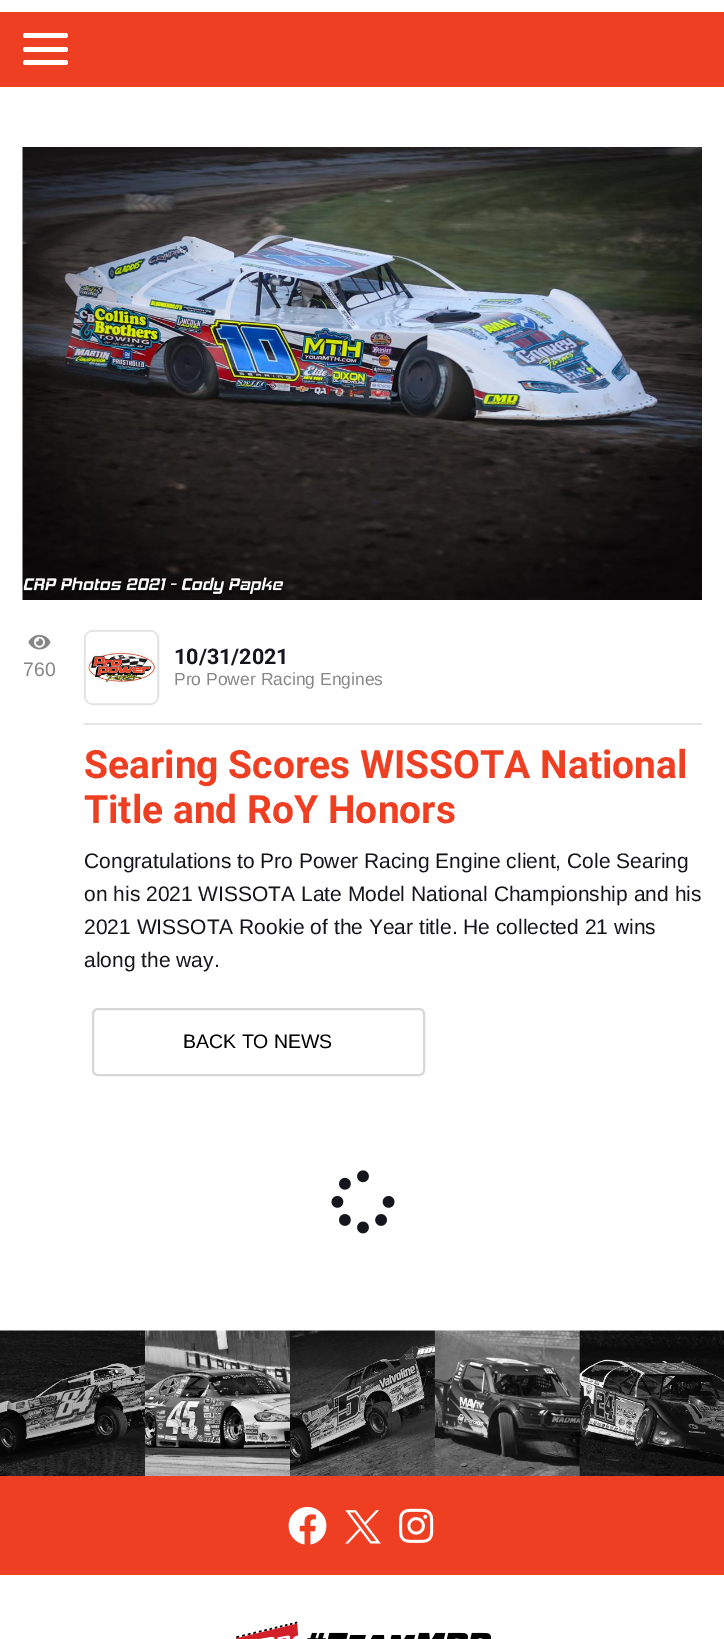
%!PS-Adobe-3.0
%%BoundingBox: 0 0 724 1639
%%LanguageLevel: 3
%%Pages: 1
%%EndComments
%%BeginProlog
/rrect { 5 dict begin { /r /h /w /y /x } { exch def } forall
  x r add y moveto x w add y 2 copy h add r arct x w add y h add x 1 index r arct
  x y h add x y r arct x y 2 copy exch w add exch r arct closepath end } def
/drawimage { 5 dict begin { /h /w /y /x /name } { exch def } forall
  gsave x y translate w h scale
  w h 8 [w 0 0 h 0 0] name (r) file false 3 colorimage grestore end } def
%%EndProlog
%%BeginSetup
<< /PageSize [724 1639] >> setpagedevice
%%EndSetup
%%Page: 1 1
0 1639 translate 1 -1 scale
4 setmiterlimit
1 setgray
0 0 724 1639 rectfill
0.937 0.247 0.137 setrgbcolor
0 12 724 75 rectfill
1 setgray
23 33 45 5 2.5 rrect fill
23 47 45 5 2.5 rrect fill
23 60 45 5 2.5 rrect fill
(images/1.raw) 22 147 680 453 drawimage
(images/2.raw) 28 634 23 16 drawimage
0.882 setgray
2 setlinewidth
85 631 73 73 8 rrect stroke
(images/3.raw) 85 631 73 73 drawimage
0.902 setgray
84 723 618 2 rectfill
0.843 setgray
93 1009 331 66 5 rrect stroke
(images/4.raw) 331 1170 64 64 drawimage
(images/5.raw) 0 1330 724 146 drawimage
0.937 0.247 0.137 setrgbcolor
0 1476 724 99 rectfill
(images/6.raw) 288 1507 39 38 drawimage
(images/7.raw) 345 1510 36 34 drawimage
(images/8.raw) 399 1508 35 35 drawimage
(images/9.raw) 236 1621 256 18 drawimage
/LiberationSans-Regular [19.5 0 0 -19.5 0 0] selectfont
0.525 setgray
23 676 moveto (760) show
/Roboto-Bold [21.5 0 0 -21.5 0 0] selectfont
0.082 0.082 0.118 setrgbcolor
174 664 moveto (10/31/2021) show
/LiberationSans-Regular [17.5 0 0 -17.5 0 0] selectfont
0.525 setgray
174 685 moveto (Pro Power Racing Engines) show
/Roboto-Bold [39 0 0 -39 0 0] selectfont
0.937 0.247 0.137 setrgbcolor
84 778 moveto (Searing Scores WISSOTA National) show
84 823 moveto (Title and RoY Honors) show
/LiberationSans-Regular [21 0 0 -21 0 0] selectfont
0.082 0.082 0.118 setrgbcolor
84 868 moveto (Congratulations to Pro Power Racing Engine client, Cole Searing) show
84 901 moveto (on his 2021 WISSOTA Late Model National Championship and his) show
84 934 moveto (2021 WISSOTA Rookie of the Year title. He collected 21 wins) show
84 967 moveto (along the way.) show
/LiberationSans-Regular [19.5 0 0 -19.5 0 0] selectfont
0 setgray
183 1048 moveto (BACK TO NEWS) show
showpage
%%EOF
